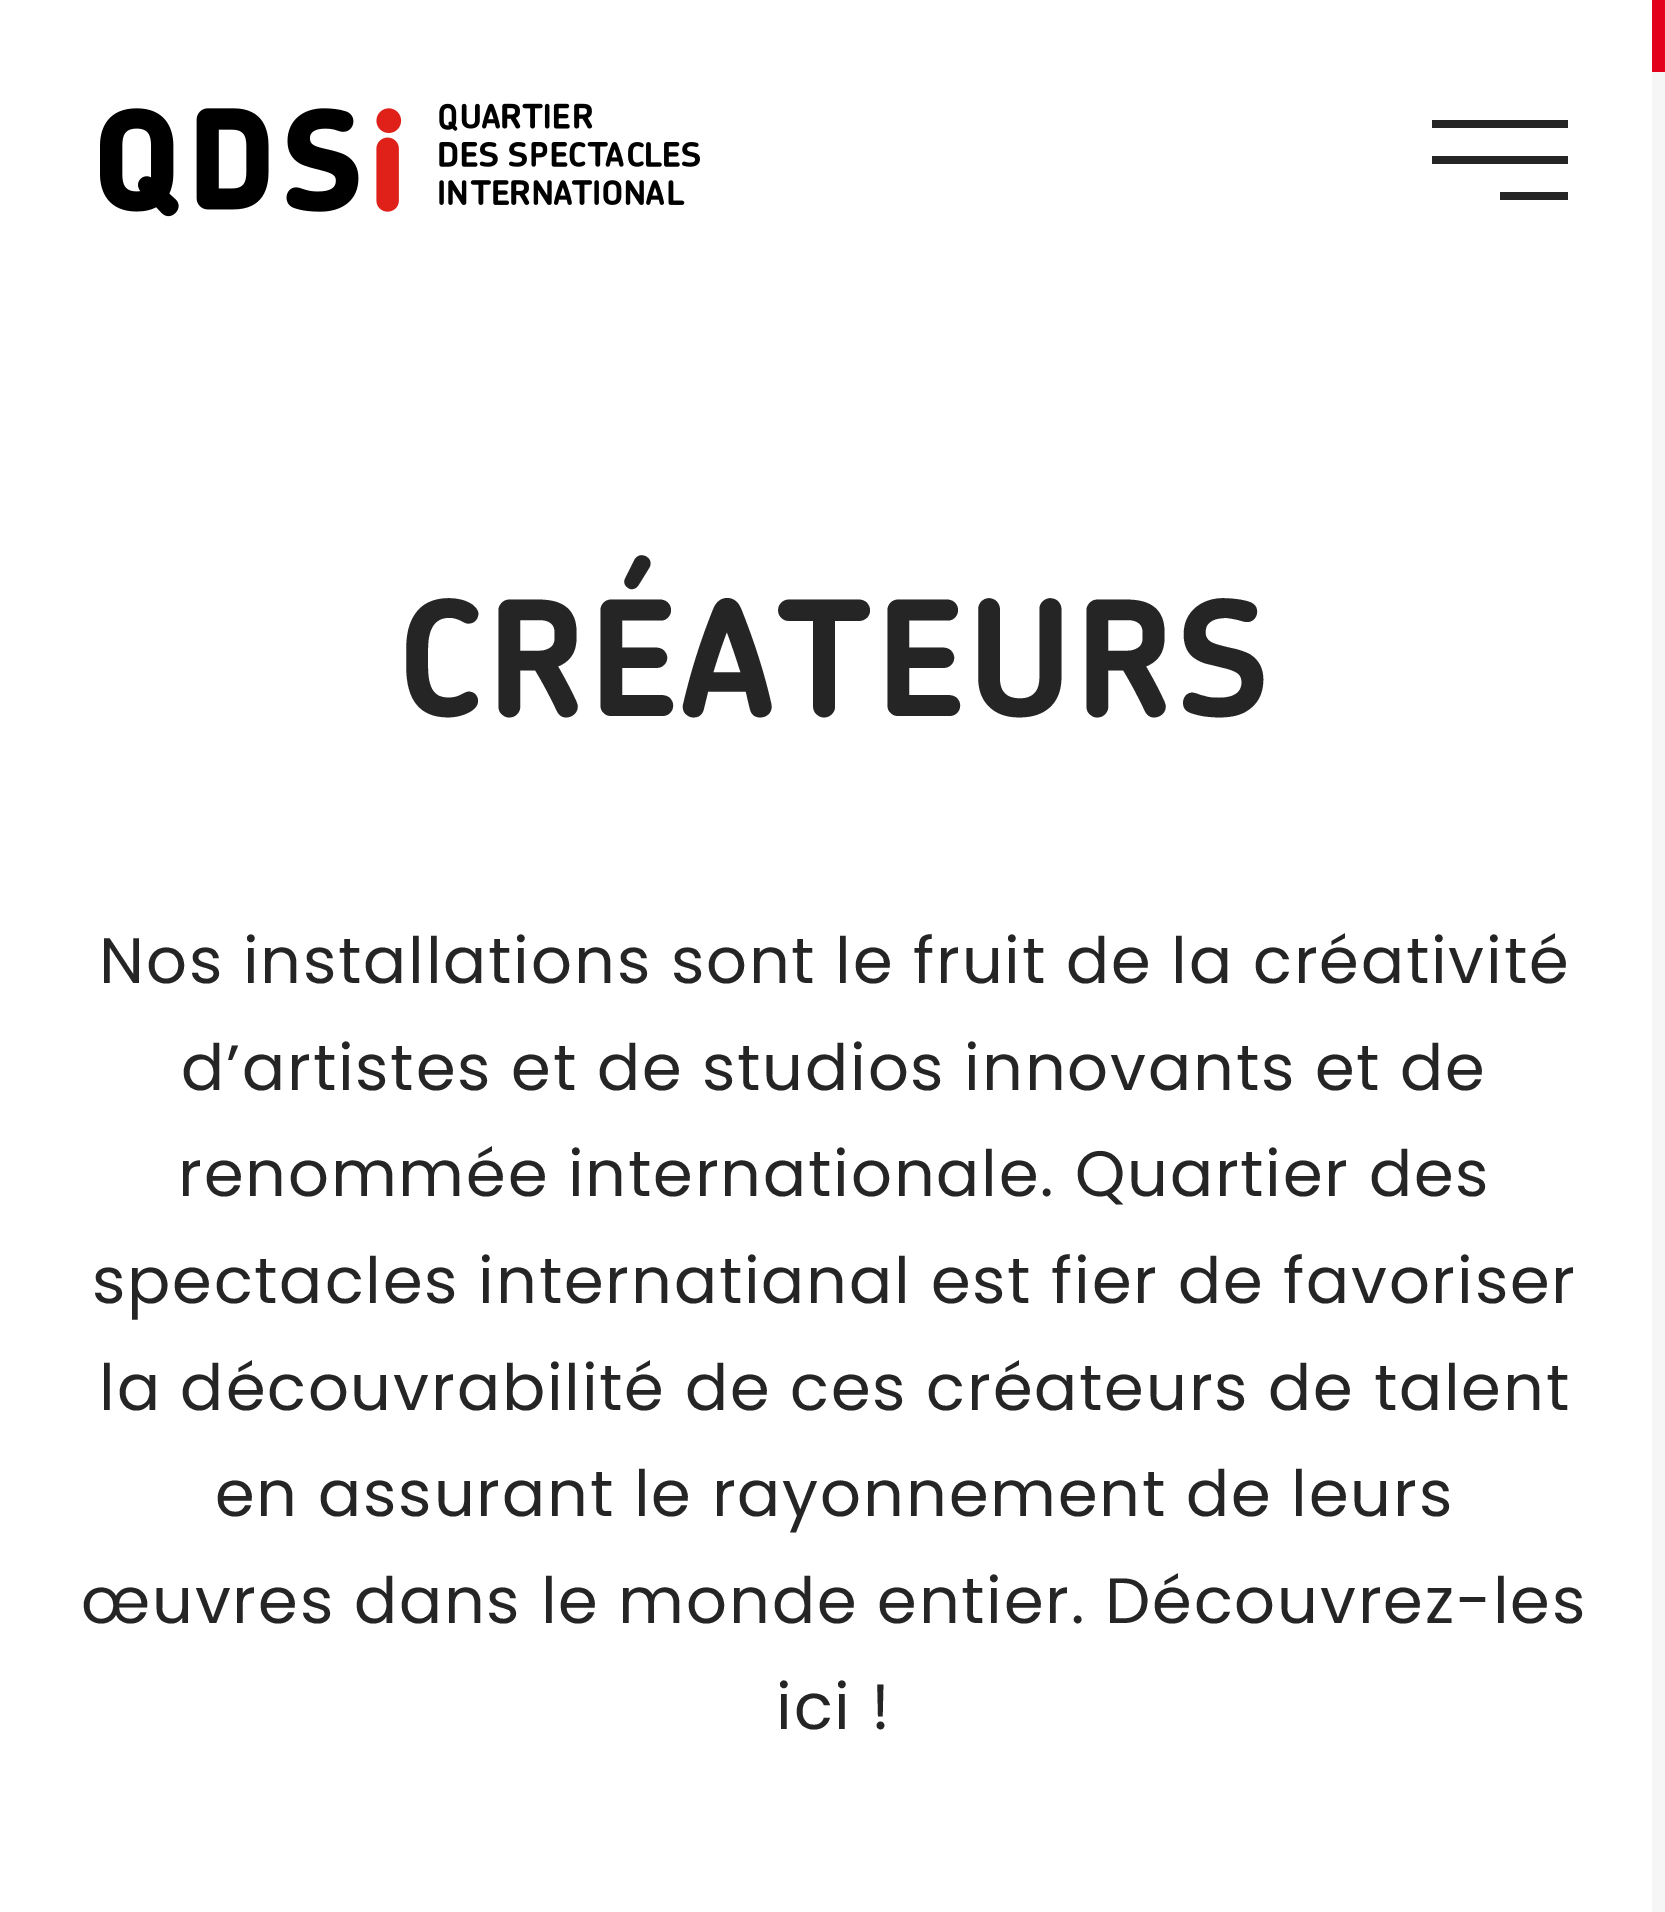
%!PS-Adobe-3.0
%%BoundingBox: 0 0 1665 1912
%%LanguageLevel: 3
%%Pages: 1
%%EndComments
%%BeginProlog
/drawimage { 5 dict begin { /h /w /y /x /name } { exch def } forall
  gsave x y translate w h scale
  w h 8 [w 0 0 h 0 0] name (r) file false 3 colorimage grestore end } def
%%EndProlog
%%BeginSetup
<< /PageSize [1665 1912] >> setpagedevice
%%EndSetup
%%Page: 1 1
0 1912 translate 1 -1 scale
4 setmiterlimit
1 setgray
0 0 1665 1912 rectfill
(images/1.raw) 100 103 600 114 drawimage
0.145 setgray
1432 120 136 8 rectfill
1432 156 136 8 rectfill
1500 192 68 8 rectfill
0.965 setgray
1652 72 13 1840 rectfill
0.886 0 0.102 setrgbcolor
1652 0 13 72 rectfill
/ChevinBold-Bold [160 0 0 -160 0 0] selectfont
0.145 setgray
396 716 moveto 2.5 0 (CRÉATEURS) ashow
/Poppins-Regular [64 0 0 -64 0 0] selectfont
99 983 moveto 1.8 0 (Nos installations sont le fruit de la créativité) ashow
181 1090 moveto 1.8 0 (d’artistes et de studios innovants et de) ashow
178 1196 moveto 1.8 0 (renommée internationale. Quartier des) ashow
92 1303 moveto 1.8 0 (spectacles internatianal est fier de favoriser) ashow
99 1410 moveto 1.8 0 (la découvrabilité de ces créateurs de talent) ashow
215 1516 moveto 1.8 0 (en assurant le rayonnement de leurs) ashow
81 1623 moveto 1.8 0 (œuvres dans le monde entier. Découvrez-les) ashow
776 1729 moveto 1.8 0 (ici !) ashow
showpage
%%EOF
